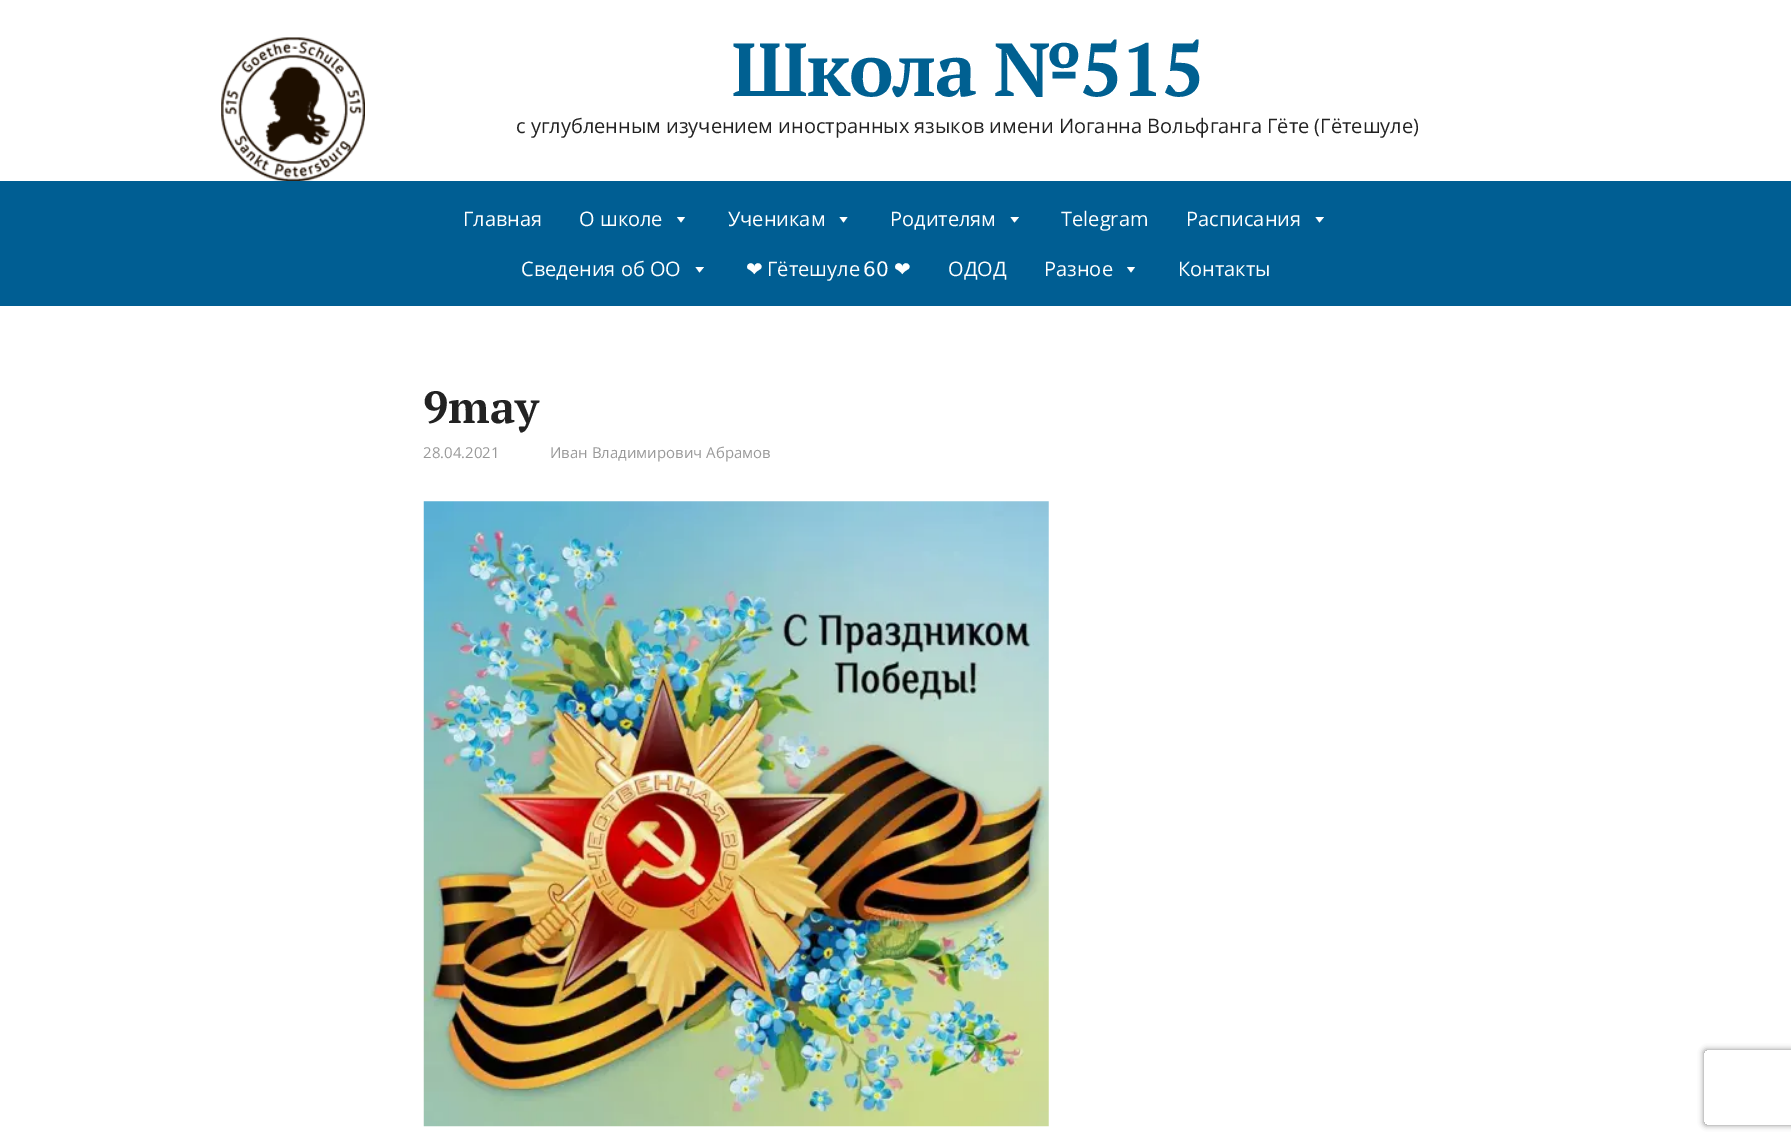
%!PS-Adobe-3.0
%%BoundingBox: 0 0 1791 1142
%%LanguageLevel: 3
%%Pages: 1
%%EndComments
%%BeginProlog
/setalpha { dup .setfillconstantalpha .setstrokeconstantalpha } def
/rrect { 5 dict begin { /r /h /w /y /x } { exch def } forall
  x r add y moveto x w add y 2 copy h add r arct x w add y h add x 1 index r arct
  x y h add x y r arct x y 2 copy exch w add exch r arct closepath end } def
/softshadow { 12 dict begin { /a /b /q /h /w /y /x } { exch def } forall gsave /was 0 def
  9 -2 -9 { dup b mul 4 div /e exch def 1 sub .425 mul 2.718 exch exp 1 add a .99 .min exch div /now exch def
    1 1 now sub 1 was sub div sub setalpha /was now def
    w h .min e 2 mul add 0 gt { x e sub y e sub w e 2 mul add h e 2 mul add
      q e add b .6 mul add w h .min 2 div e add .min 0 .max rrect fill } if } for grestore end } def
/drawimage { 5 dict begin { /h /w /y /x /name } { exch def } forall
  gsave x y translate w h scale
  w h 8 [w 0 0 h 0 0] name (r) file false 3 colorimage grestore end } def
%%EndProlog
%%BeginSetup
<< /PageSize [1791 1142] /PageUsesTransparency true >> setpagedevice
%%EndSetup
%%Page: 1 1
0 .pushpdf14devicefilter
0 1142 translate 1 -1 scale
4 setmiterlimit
1 setgray
0 0 1791 1142 rectfill
(images/1.raw) 221 37 144 144 drawimage
0 0.369 0.576 setrgbcolor
0 181 1791 125 rectfill
1 setgray
newpath 685 217 moveto 681 222.5 lineto 677 217 lineto closepath fill
newpath 847.5 217 moveto 843.5 222.5 lineto 839.5 217 lineto closepath fill
newpath 1019 217 moveto 1014.5 222.5 lineto 1010.5 217 lineto closepath fill
newpath 1324 217 moveto 1319.5 222.5 lineto 1315.5 217 lineto closepath fill
newpath 704 267 moveto 699.5 272.5 lineto 695.5 267 lineto closepath fill
newpath 1135 267 moveto 1131 272.5 lineto 1127 267 lineto closepath fill
(images/2.raw) 423 501 626 626 drawimage
gsave
newpath 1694 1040 moveto 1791 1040 lineto 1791 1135 lineto 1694 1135 lineto closepath 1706.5 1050 moveto 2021.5 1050 lineto 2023 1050 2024 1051 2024 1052.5 curveto 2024 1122.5 lineto 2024 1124 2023 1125 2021.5 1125 curveto 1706.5 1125 lineto 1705 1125 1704 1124 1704 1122.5 curveto 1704 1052.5 lineto 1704 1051 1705 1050 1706.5 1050 curveto closepath eoclip newpath
0.502 setgray
1704 1050 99 75 2.5 3 1 softshadow
grestore
/PTSerif-Bold [75 0 0 -75 0 0] selectfont
0 0.376 0.569 setrgbcolor
732 96 moveto -1.5 0 (Школа №515) ashow
/OpenSans-Regular [20 0 0 -20 0 0] selectfont
0.133 setgray
516 133 moveto (с углубленным изучением иностранных языков имени Иоганна Вольфганга Гёте \(Гётешуле\)) show
1 setgray
463 226 moveto (Главная) show
579 226 moveto (О школе) show
728 226 moveto (Ученикам) show
890 226 moveto (Родителям) show
1061 226 moveto (Telegram) show
1186 226 moveto (Расписания) show
521 276 moveto (Сведения об ОО) show
/DejaVuSans-Regular [20 0 0 -20 0 0] selectfont
746 276 moveto (❤) show
/OpenSans-Regular [20 0 0 -20 0 0] selectfont
767 276 moveto (Гётешуле) show
/DejaVuSans-Regular [20 0 0 -20 0 0] selectfont
863 276 moveto -1 0 32 (60 ❤) widthshow
/OpenSans-Regular [20 0 0 -20 0 0] selectfont
948 276 moveto (ОДОД) show
1044 276 moveto (Разное) show
1178 276 moveto (Контакты) show
/PTSerif-Bold [45 0 0 -45 0 0] selectfont
0.133 setgray
423 423 moveto (9may) show
/OpenSans-Regular [15 0 0 -15 0 0] selectfont
0.6 setgray
423 458 moveto (28.04.2021) show
550 458 moveto (Иван Владимирович Абрамов) show
.poppdf14devicefilter showpage
%%EOF
